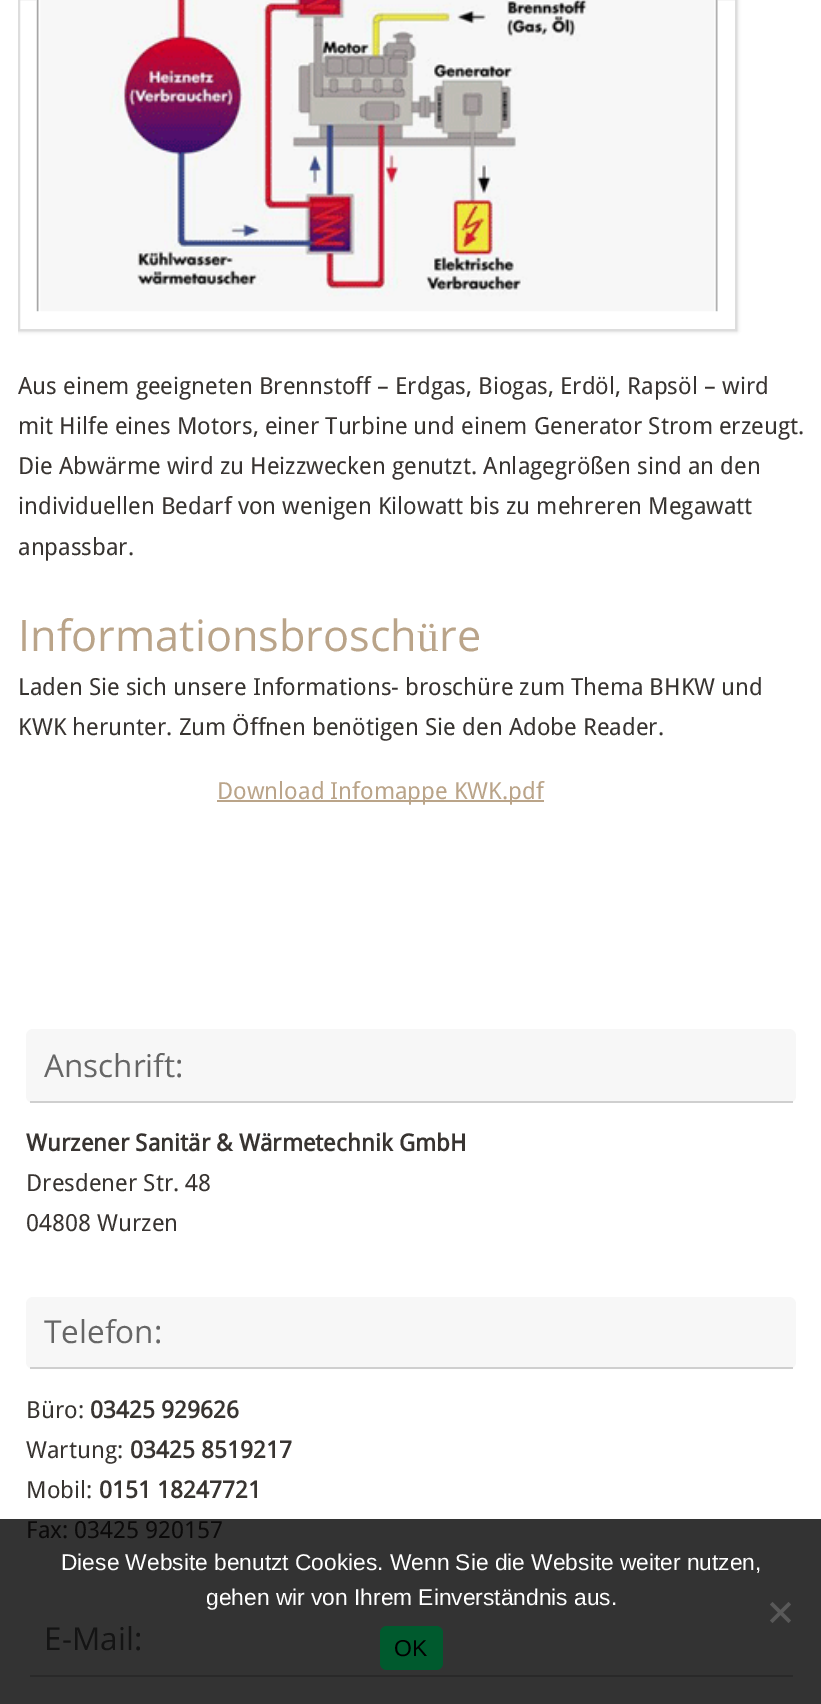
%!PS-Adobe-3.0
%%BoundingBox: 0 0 821 1704
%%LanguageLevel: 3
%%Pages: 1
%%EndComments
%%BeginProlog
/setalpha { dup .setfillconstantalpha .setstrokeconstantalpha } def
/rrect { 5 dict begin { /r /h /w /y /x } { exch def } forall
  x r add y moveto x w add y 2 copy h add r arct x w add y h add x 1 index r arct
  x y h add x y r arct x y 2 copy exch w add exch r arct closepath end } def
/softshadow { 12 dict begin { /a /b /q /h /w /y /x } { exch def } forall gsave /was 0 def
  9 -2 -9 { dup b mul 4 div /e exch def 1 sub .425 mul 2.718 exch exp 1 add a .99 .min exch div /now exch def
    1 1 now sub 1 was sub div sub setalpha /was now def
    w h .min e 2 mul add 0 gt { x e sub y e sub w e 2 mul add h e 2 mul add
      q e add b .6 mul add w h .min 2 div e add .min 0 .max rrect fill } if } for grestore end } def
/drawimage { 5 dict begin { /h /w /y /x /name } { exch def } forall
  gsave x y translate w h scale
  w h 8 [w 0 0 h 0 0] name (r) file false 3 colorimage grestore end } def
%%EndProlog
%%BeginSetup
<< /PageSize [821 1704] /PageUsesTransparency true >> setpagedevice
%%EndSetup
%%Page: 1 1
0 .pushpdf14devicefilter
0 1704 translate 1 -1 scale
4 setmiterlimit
1 setgray
0 0 821 1704 rectfill
0.2 setgray
0 1519 821 185 rectfill
gsave
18 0 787 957 rectclip
newpath 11 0 moveto 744 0 lineto 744 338 lineto 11 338 lineto closepath 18 -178 moveto 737 -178 lineto 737 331 lineto 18 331 lineto closepath eoclip newpath
0.804 setgray
18 -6 719 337 0 2 1 softshadow
grestore
0.867 setgray
2 setlinewidth
19 -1 717 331 rectstroke
(images/1.raw) 36 0 682 312 drawimage
0.729 0.643 0.537 setrgbcolor
217 800 327 2 rectfill
0.969 setgray
26 1029 770 74 7 rrect fill
0.812 setgray
30 1101 763 2 rectfill
0.969 setgray
26 1297 770 72 7 rrect fill
0.812 setgray
30 1367 763 2 rectfill
0.161 setgray
30 1675 763 2 rectfill
0.349 setgray
newpath 788.5 1602 moveto 791 1604.5 lineto 772.5 1623 lineto 770 1620.5 lineto closepath fill
newpath 770 1604.5 moveto 772.5 1602 lineto 791 1620.5 lineto 788.5 1623 lineto closepath fill
0 0.353 0.18 setrgbcolor
380 1626 63 44 7 rrect fill
/DroidSans-Regular [23.6 0 0 -23.6 0 0] selectfont
0.22 0.204 0.192 setrgbcolor
18 394 moveto (Aus einem geeigneten Brennstoff – Erdgas, Biogas, Erdöl, Rapsöl – wird) show
18 434 moveto (mit Hilfe eines Motors, einer Turbine und einem Generator Strom erzeugt.) show
18 474 moveto (Die Abwärme wird zu Heizzwecken genutzt. Anlagegrößen sind an den) show
18 514 moveto (individuellen Bedarf von wenigen Kilowatt bis zu mehreren Megawatt) show
18 555 moveto (anpassbar.) show
/OpenSans-Regular [43.25 0 0 -43.25 0 0] selectfont
0.729 0.643 0.537 setrgbcolor
18 651 moveto (Informationsbrosch) show
/LiberationSerif-Regular [43.25 0 0 -43.25 0 0] selectfont
417 651 moveto (ü) show
/OpenSans-Regular [43.25 0 0 -43.25 0 0] selectfont
439 651 moveto (re) show
/DroidSans-Regular [23.6 0 0 -23.6 0 0] selectfont
0.22 0.204 0.192 setrgbcolor
18 695 moveto (Laden Sie sich unsere Informations- broschüre zum Thema BHKW und) show
18 735 moveto (KWK herunter. Zum Öffnen benötigen Sie den Adobe Reader.) show
0.729 0.643 0.537 setrgbcolor
217 799 moveto (Download Infomappe KWK.pdf) show
/OpenSans-Regular [31.5 0 0 -31.5 0 0] selectfont
0.4 setgray
44 1077 moveto (Anschrift:) show
/DroidSans-Bold [23.6 0 0 -23.6 0 0] selectfont
0.22 0.204 0.192 setrgbcolor
26 1151 moveto (Wurzener Sanitär & Wärmetechnik GmbH) show
/DroidSans-Regular [23.6 0 0 -23.6 0 0] selectfont
26 1191 moveto (Dresdener Str. 48) show
26 1231 moveto (04808 Wurzen) show
/OpenSans-Regular [31.5 0 0 -31.5 0 0] selectfont
0.4 setgray
44 1343 moveto (Telefon:) show
/DroidSans-Regular [23.6 0 0 -23.6 0 0] selectfont
0.22 0.204 0.192 setrgbcolor
26 1418 moveto (Büro:) show
/DroidSans-Bold [23.6 0 0 -23.6 0 0] selectfont
90 1418 moveto (03425 929626) show
/DroidSans-Regular [23.6 0 0 -23.6 0 0] selectfont
26 1458 moveto (Wartung:) show
/DroidSans-Bold [23.6 0 0 -23.6 0 0] selectfont
130 1458 moveto (03425 8519217) show
/DroidSans-Regular [23.6 0 0 -23.6 0 0] selectfont
26 1498 moveto (Mobil:) show
/DroidSans-Bold [23.6 0 0 -23.6 0 0] selectfont
99 1498 moveto (0151 18247721) show
/DroidSans-Regular [23.6 0 0 -23.6 0 0] selectfont
0.043 0.039 0.039 setrgbcolor
26 1538 moveto (Fax: 03425 920157) show
/OpenSans-Regular [31.5 0 0 -31.5 0 0] selectfont
0.078 setgray
44 1650 moveto (E-Mail:) show
/LiberationSans-Regular [22.75 0 0 -22.75 0 0] selectfont
1 setgray
61 1570 moveto (Diese Website benutzt Cookies. Wenn Sie die Website weiter nutzen,) show
206 1605 moveto (gehen wir von Ihrem Einverständnis aus.) show
/LiberationSans-Regular [23 0 0 -23 0 0] selectfont
0 setgray
394 1656 moveto (OK) show
.poppdf14devicefilter showpage
%%EOF
